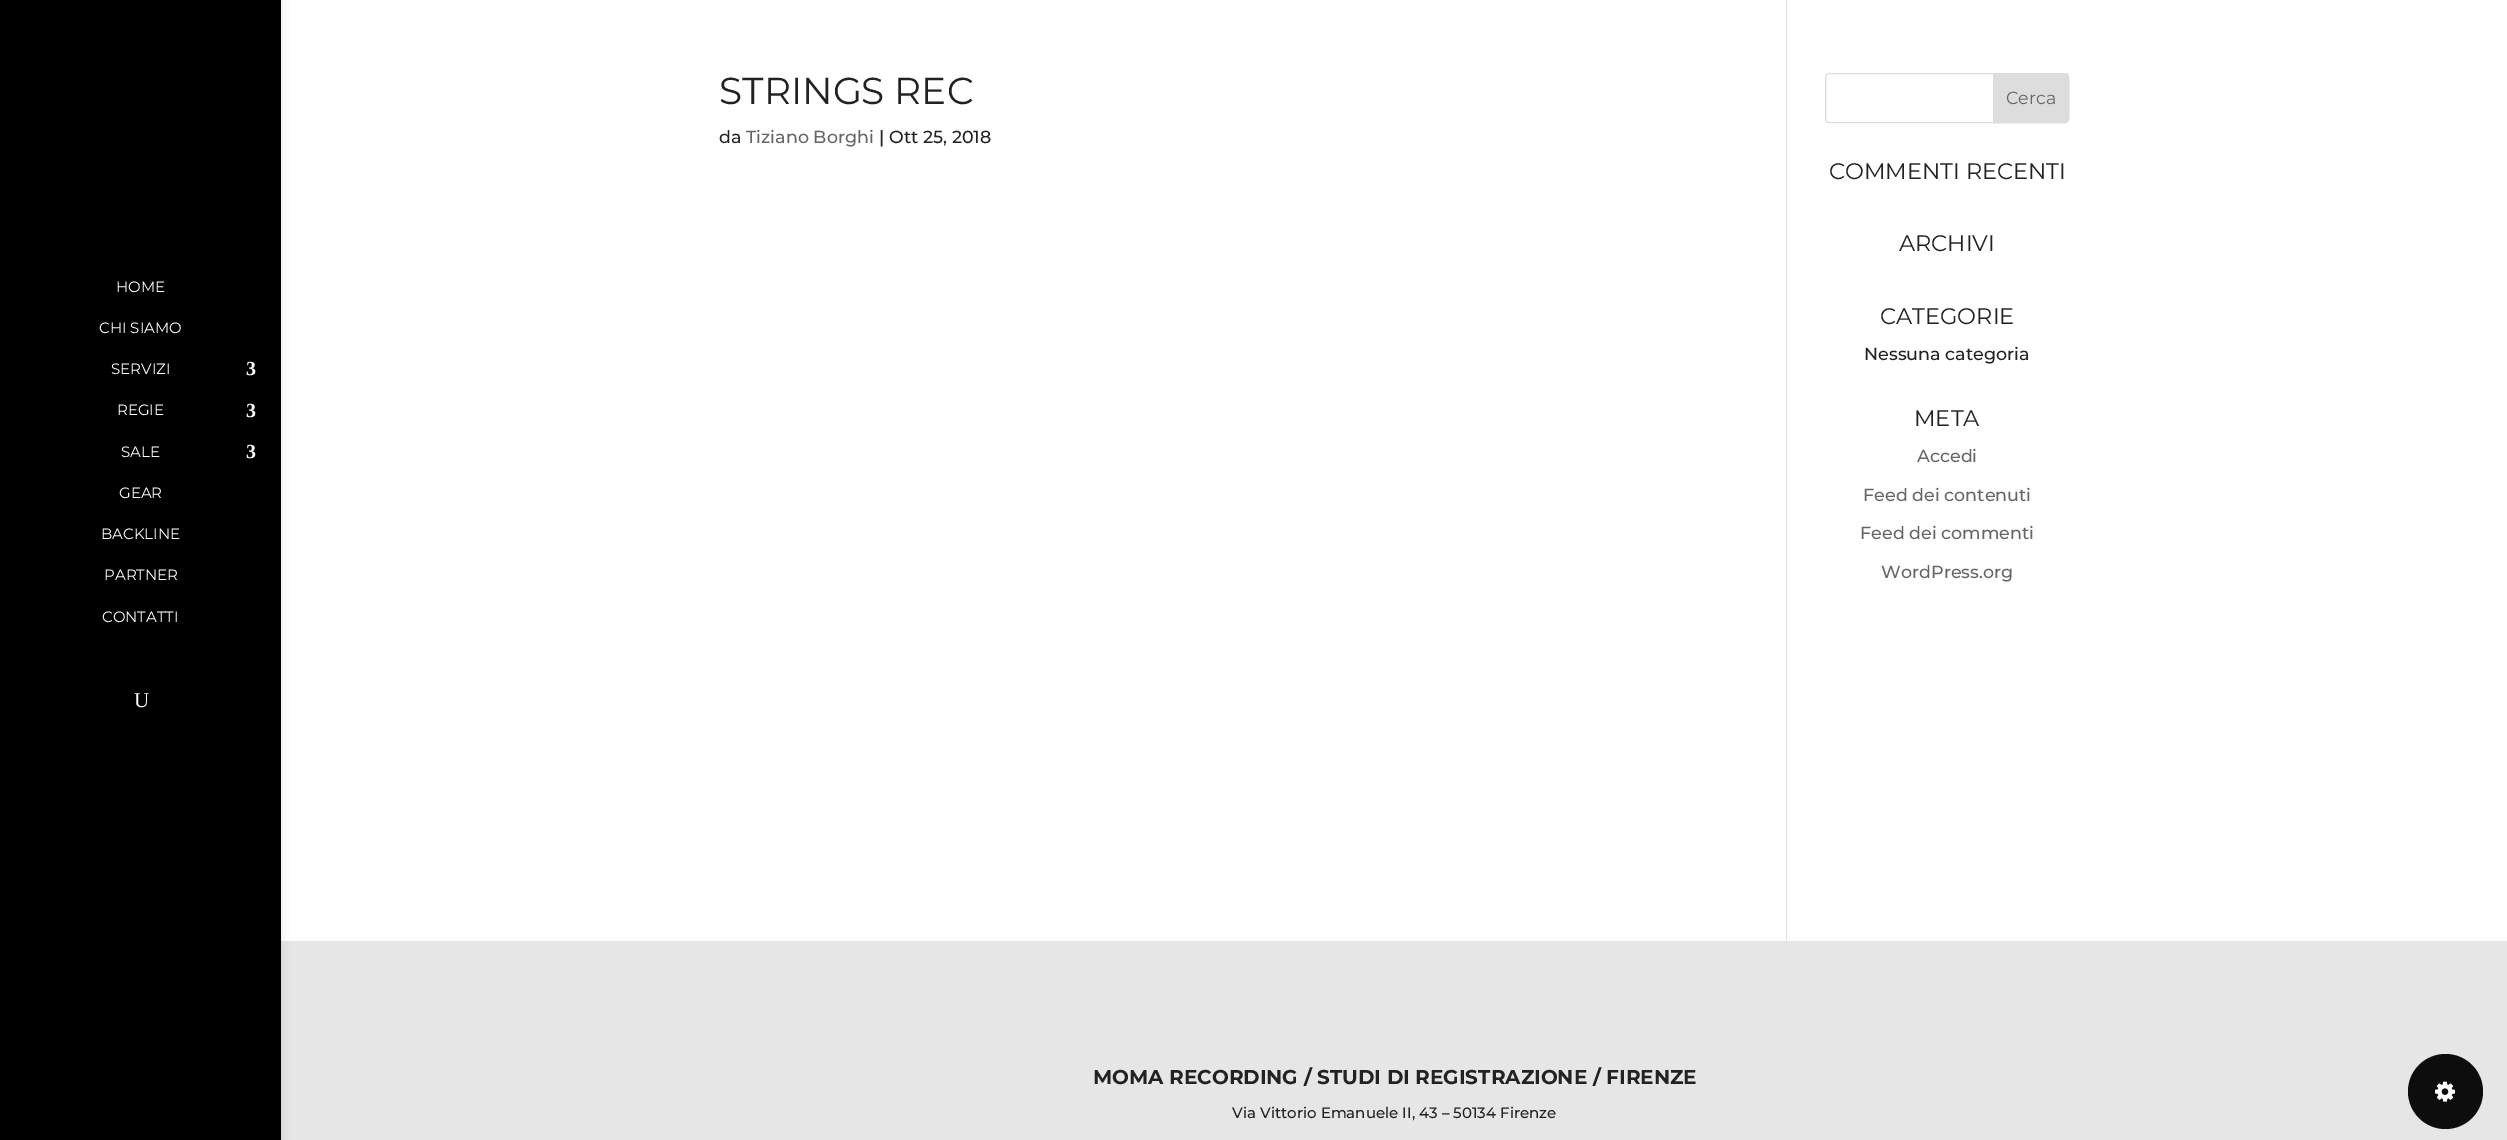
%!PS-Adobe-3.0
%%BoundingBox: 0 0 2507 1140
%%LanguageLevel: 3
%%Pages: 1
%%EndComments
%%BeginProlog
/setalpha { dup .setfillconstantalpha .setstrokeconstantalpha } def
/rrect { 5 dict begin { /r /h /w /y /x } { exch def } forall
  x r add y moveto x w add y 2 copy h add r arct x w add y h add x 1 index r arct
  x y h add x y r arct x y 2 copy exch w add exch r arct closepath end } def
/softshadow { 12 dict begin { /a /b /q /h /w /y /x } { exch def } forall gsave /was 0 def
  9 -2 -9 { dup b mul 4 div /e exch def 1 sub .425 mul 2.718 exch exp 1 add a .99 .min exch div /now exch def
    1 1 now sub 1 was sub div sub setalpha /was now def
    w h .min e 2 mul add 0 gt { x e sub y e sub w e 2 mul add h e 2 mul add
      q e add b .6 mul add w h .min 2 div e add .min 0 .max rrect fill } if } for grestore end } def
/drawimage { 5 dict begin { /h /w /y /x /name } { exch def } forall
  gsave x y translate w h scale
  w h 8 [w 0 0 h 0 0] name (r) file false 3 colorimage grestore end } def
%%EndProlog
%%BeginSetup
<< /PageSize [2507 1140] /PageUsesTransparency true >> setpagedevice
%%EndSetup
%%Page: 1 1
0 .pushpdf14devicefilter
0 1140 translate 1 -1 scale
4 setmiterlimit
1 setgray
0 0 2507 1140 rectfill
0.902 setgray
281 941 2226 199 rectfill
0 setgray
0 0 281 1140 0 4.5 0.1 softshadow
0 0 281 1140 rectfill
0.886 setgray
1786 0 1 941 rectfill
0.867 setgray
1825.5 73.5 243 49 3.5 rrect stroke
newpath 1993.5 73.5 moveto 2065 73.5 lineto 2067 73.5 2068.5 75 2068.5 77 curveto 2068.5 119 lineto 2068.5 121 2067 122.5 2065 122.5 curveto 1993.5 122.5 lineto closepath gsave fill grestore
stroke
0.051 setgray
newpath 2445.5 1091.5 37.5 0 360 arc closepath fill
(images/1.raw) 2435 1081 20 21 drawimage
/Montserrat-Regular [15 0 0 -15 0 0] selectfont
1 setgray
116 292 moveto (HOME) show
99 333 moveto (CHI SIAMO) show
111 374 moveto (SERVIZI) show
/LiberationSerif-Bold [20 0 0 -20 0 0] selectfont
246 375 moveto (3) show
/Montserrat-Regular [15 0 0 -15 0 0] selectfont
117 415 moveto (REGIE) show
/LiberationSerif-Bold [20 0 0 -20 0 0] selectfont
246 417 moveto (3) show
/Montserrat-Regular [15 0 0 -15 0 0] selectfont
121 457 moveto (SALE) show
/LiberationSerif-Bold [20 0 0 -20 0 0] selectfont
246 458 moveto (3) show
/Montserrat-Regular [15 0 0 -15 0 0] selectfont
119 498 moveto (GEAR) show
101 539 moveto (BACKLINE) show
104 580 moveto (PARTNER) show
102 622 moveto (CONTATTI) show
/LiberationSerif-Regular [21 0 0 -21 0 0] selectfont
134 707 moveto (U) show
/Montserrat-Regular [37.5 0 0 -37.5 0 0] selectfont
0.133 setgray
719 104 moveto (STRINGS REC) show
/Montserrat-Medium [17.5 0 0 -17.5 0 0] selectfont
719 143 moveto (da) show
0.4 setgray
746 143 moveto (Tiziano Borghi) show
0.133 setgray
879 143 moveto (| Ott 25, 2018) show
/Montserrat-Regular [17.5 0 0 -17.5 0 0] selectfont
0.4 setgray
2006 104 moveto (Cerca) show
/Montserrat-Regular [22.5 0 0 -22.5 0 0] selectfont
0.133 setgray
1829 179 moveto (COMMENTI RECENTI) show
1899 251 moveto (ARCHIVI) show
1880 324 moveto (CATEGORIE) show
/Montserrat-Medium [17.5 0 0 -17.5 0 0] selectfont
1864 360 moveto (Nessuna categoria) show
/Montserrat-Regular [22.5 0 0 -22.5 0 0] selectfont
1914 426 moveto (META) show
/Montserrat-Medium [17.5 0 0 -17.5 0 0] selectfont
0.4 setgray
1917 462 moveto (Accedi) show
1863 501 moveto (Feed dei contenuti) show
1860 539 moveto (Feed dei commenti) show
1881 578 moveto (WordPress.org) show
/Montserrat-Bold [20 0 0 -20 0 0] selectfont
0.133 setgray
1093 1084 moveto (MOMA RECORDING / STUDI DI REGISTRAZIONE / FIRENZE) show
/Montserrat-Medium [15 0 0 -15 0 0] selectfont
1232 1118 moveto (Via Vittorio Emanuele II, 43 – 50134 Firenze) show
.poppdf14devicefilter showpage
%%EOF
